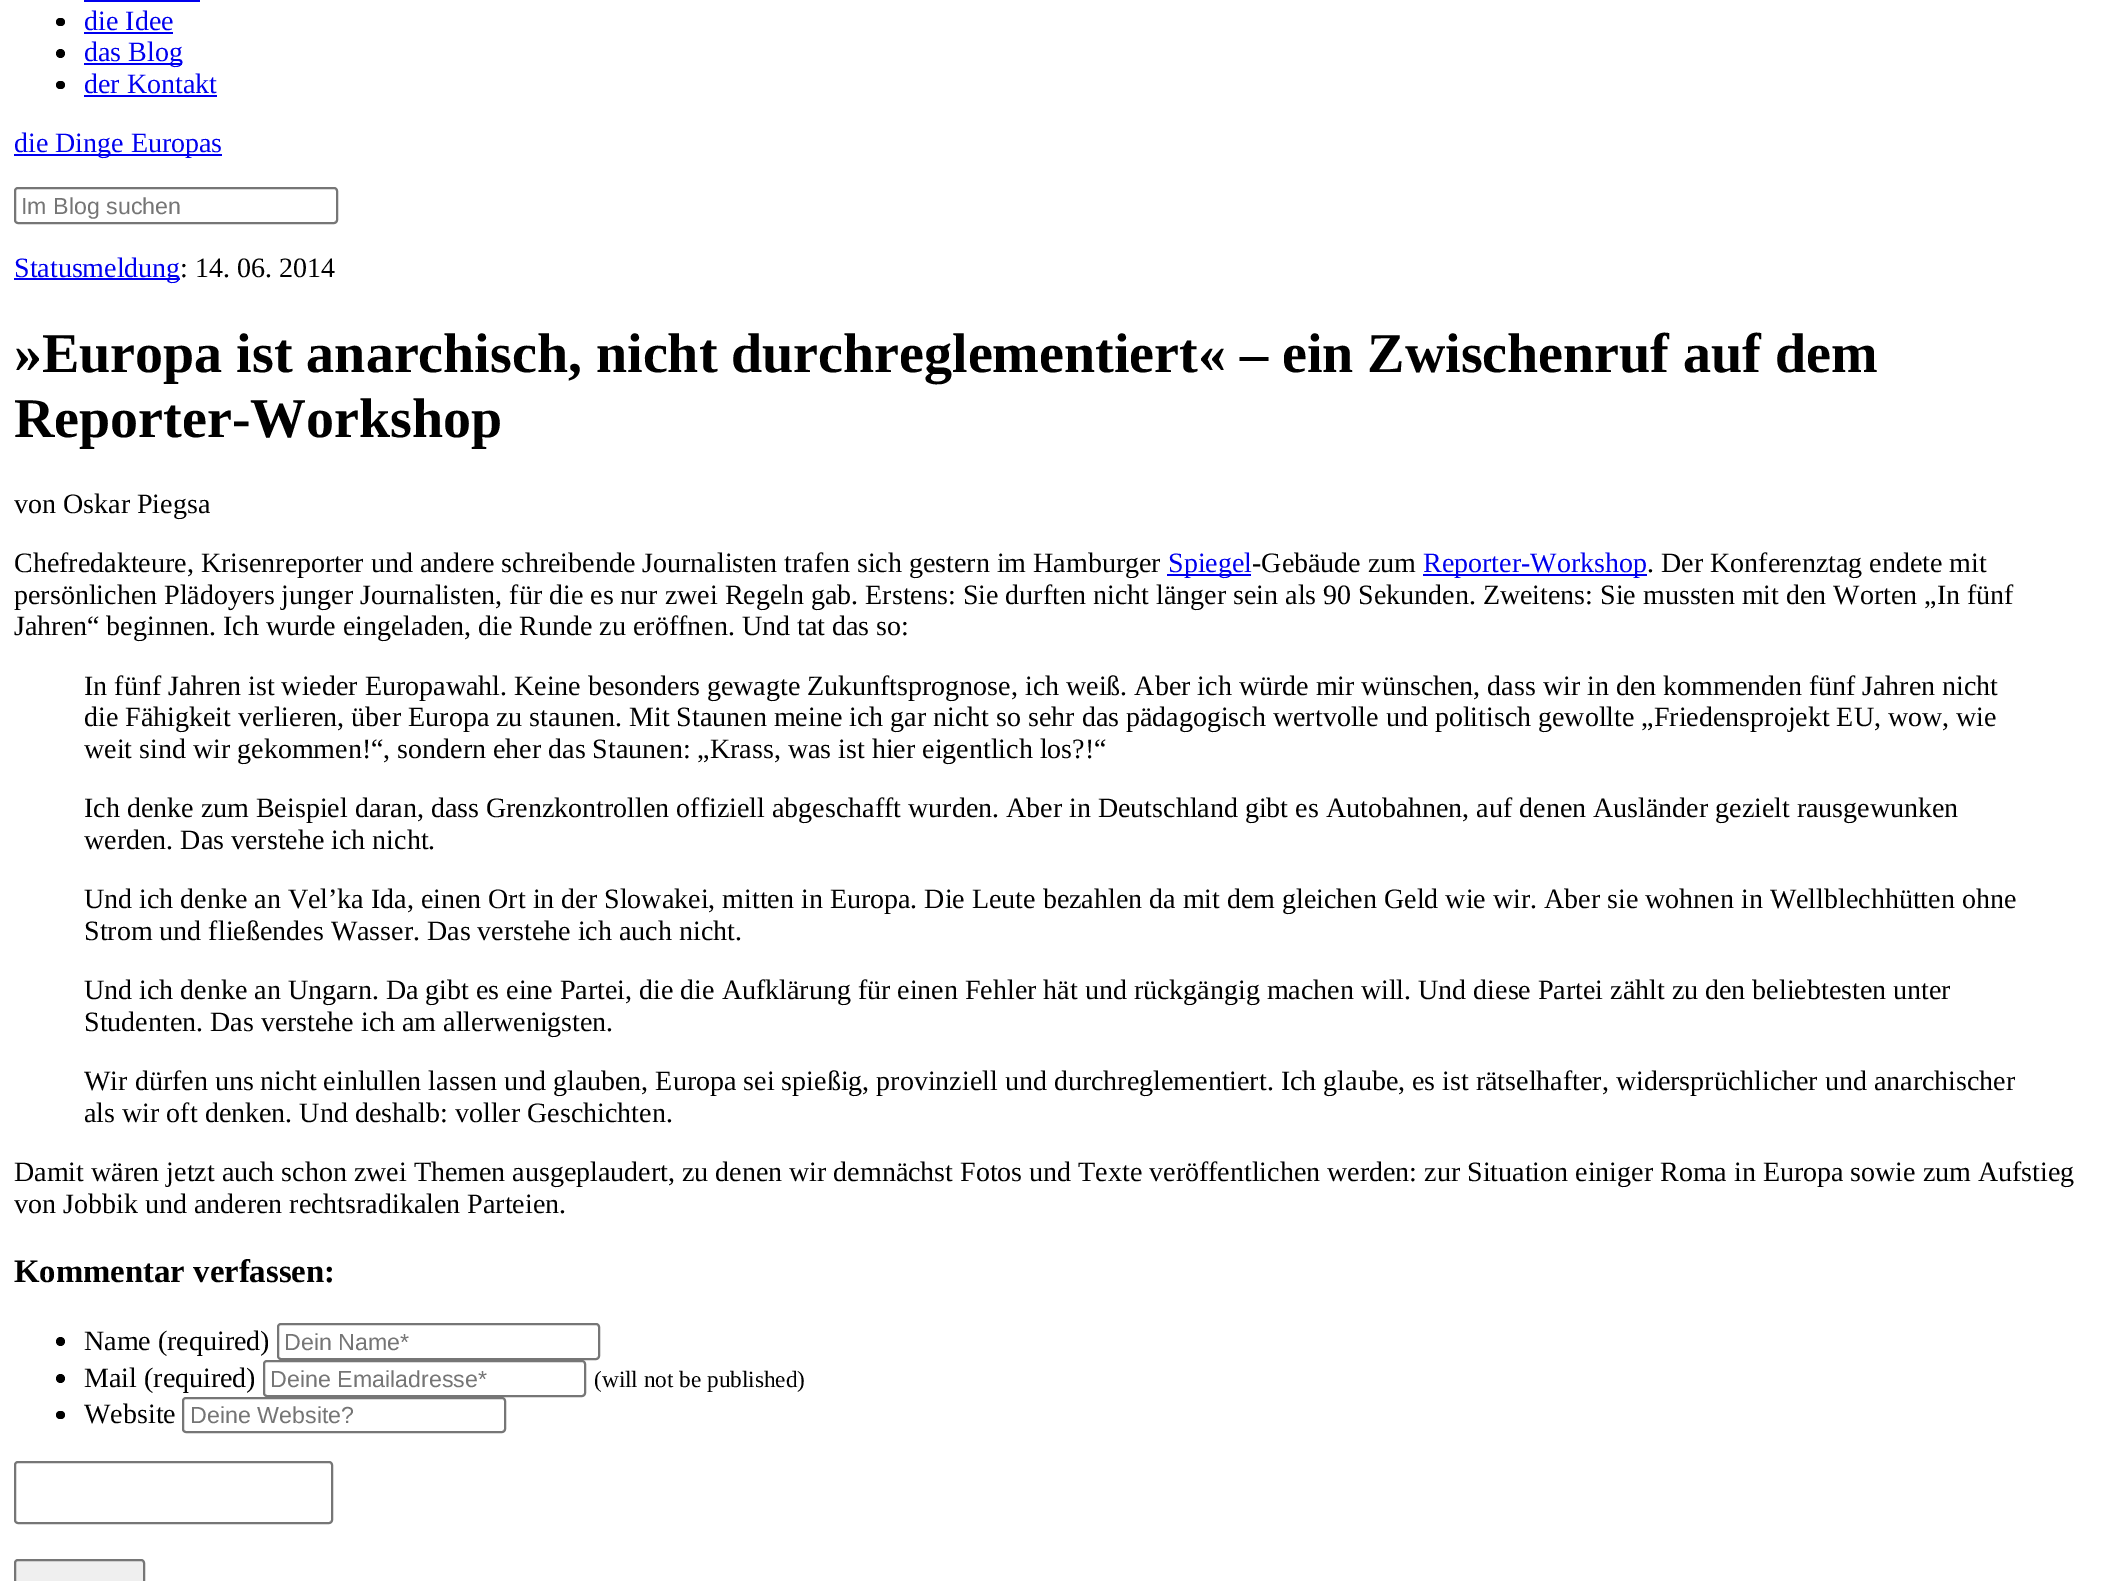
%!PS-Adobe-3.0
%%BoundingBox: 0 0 2111 1581
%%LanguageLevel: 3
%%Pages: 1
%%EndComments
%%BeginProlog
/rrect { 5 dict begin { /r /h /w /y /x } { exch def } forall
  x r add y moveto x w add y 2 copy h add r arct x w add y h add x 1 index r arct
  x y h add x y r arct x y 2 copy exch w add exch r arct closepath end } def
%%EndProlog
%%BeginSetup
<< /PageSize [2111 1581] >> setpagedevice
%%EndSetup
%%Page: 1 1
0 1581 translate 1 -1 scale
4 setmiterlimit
1 setgray
0 0 2111 1581 rectfill
0 0 0.933 setrgbcolor
84 0 116 2 rectfill
0 setgray
56 18 9 8 4 rrect fill
0 0 0.933 setrgbcolor
84 32 89 2 rectfill
0 setgray
newpath 60.5 53.5 4.5 0 360 arc closepath fill
0 0 0.933 setrgbcolor
84 63 98 2 rectfill
0 setgray
56 81 9 8 4 rrect fill
0 0 0.933 setrgbcolor
84 95 133 2 rectfill
14 154 208 2 rectfill
0.463 setgray
2 setlinewidth
15 188 322 35 3 rrect stroke
0 0 0.933 setrgbcolor
14 278 166 2 rectfill
1167 574 84 2 rectfill
1423 574 224 2 rectfill
0 setgray
newpath 60.5 1341.5 4.5 0 360 arc closepath fill
0.463 setgray
278 1324 321 35 3 rrect stroke
0 setgray
newpath 60.5 1378.5 4.5 0 360 arc closepath fill
0.463 setgray
264 1361 321 35 3 rrect stroke
0 setgray
56 1411 9 8 4 rrect fill
0.463 setgray
183 1398 322 34 3 rrect stroke
15 1462 317 61 3 rrect stroke
0.937 setgray
15 1560 129 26 3 rrect gsave fill grestore
0.463 setgray
stroke
/LiberationSerif-Regular [28 0 0 -28 0 0] selectfont
0 0 0.933 setrgbcolor
84 30 moveto (die Idee) show
84 61 moveto (das Blog) show
84 93 moveto (der Kontakt) show
14 152 moveto (die Dinge Europas) show
/LiberationSans-Regular [23.25 0 0 -23.25 0 0] selectfont
0.459 setgray
21 214 moveto (Im Blog suchen) show
/LiberationSerif-Regular [28 0 0 -28 0 0] selectfont
0 0 0.933 setrgbcolor
14 277 moveto (Statusmeldung) show
0 setgray
180 277 moveto (: 14. 06. 2014) show
/LiberationSerif-Bold [56 0 0 -56 0 0] selectfont
14 372 moveto (»Europa ist anarchisch, nicht durchreglementiert« – ein Zwischenruf auf dem) show
14 437 moveto (Reporter-Workshop) show
/LiberationSerif-Regular [28 0 0 -28 0 0] selectfont
14 513 moveto (von Oskar Piegsa) show
14 572 moveto (Chefredakteure, Krisenreporter und andere schreibende Journalisten trafen sich gestern im Hamburger) show
0 0 0.933 setrgbcolor
1168 572 moveto (Spiegel) show
0 setgray
1252 572 moveto (-Gebäude zum) show
0 0 0.933 setrgbcolor
1423 572 moveto (Reporter-Workshop) show
0 setgray
1647 572 moveto (. Der Konferenztag endete mit) show
14 604 moveto (persönlichen Plädoyers junger Journalisten, für die es nur zwei Regeln gab. Erstens: Sie durften nicht länger sein als 90 Sekunden. Zweitens: Sie mussten mit den Worten „In fünf) show
14 635 moveto (Jahren“ beginnen. Ich wurde eingeladen, die Runde zu eröffnen. Und tat das so:) show
84 695 moveto (In fünf Jahren ist wieder Europawahl. Keine besonders gewagte Zukunftsprognose, ich weiß. Aber ich würde mir wünschen, dass wir in den kommenden fünf Jahren nicht) show
84 726 moveto (die Fähigkeit verlieren, über Europa zu staunen. Mit Staunen meine ich gar nicht so sehr das pädagogisch wertvolle und politisch gewollte „Friedensprojekt EU, wow, wie) show
84 758 moveto (weit sind wir gekommen!“, sondern eher das Staunen: „Krass, was ist hier eigentlich los?!“) show
84 817 moveto (Ich denke zum Beispiel daran, dass Grenzkontrollen offiziell abgeschafft wurden. Aber in Deutschland gibt es Autobahnen, auf denen Ausländer gezielt rausgewunken) show
84 849 moveto (werden. Das verstehe ich nicht.) show
84 908 moveto (Und ich denke an Vel’ka Ida, einen Ort in der Slowakei, mitten in Europa. Die Leute bezahlen da mit dem gleichen Geld wie wir. Aber sie wohnen in Wellblechhütten ohne) show
84 940 moveto (Strom und fließendes Wasser. Das verstehe ich auch nicht.) show
84 999 moveto (Und ich denke an Ungarn. Da gibt es eine Partei, die die Aufklärung für einen Fehler hät und rückgängig machen will. Und diese Partei zählt zu den beliebtesten unter) show
84 1031 moveto (Studenten. Das verstehe ich am allerwenigsten.) show
84 1090 moveto (Wir dürfen uns nicht einlullen lassen und glauben, Europa sei spießig, provinziell und durchreglementiert. Ich glaube, es ist rätselhafter, widersprüchlicher und anarchischer) show
84 1122 moveto (als wir oft denken. Und deshalb: voller Geschichten.) show
14 1181 moveto (Damit wären jetzt auch schon zwei Themen ausgeplaudert, zu denen wir demnächst Fotos und Texte veröffentlichen werden: zur Situation einiger Roma in Europa sowie zum Aufstieg) show
14 1213 moveto (von Jobbik und anderen rechtsradikalen Parteien.) show
/LiberationSerif-Bold [32.75 0 0 -32.75 0 0] selectfont
14 1282 moveto (Kommentar verfassen:) show
/LiberationSerif-Regular [28 0 0 -28 0 0] selectfont
84 1350 moveto (Name \(required\)) show
/LiberationSans-Regular [23.25 0 0 -23.25 0 0] selectfont
0.459 setgray
284 1350 moveto (Dein Name*) show
/LiberationSerif-Regular [28 0 0 -28 0 0] selectfont
0 setgray
84 1387 moveto (Mail \(required\)) show
/LiberationSans-Regular [23.25 0 0 -23.25 0 0] selectfont
0.459 setgray
270 1387 moveto (Deine Emailadresse*) show
/LiberationSerif-Regular [23.25 0 0 -23.25 0 0] selectfont
0 setgray
594 1387 moveto (\(will not be published\)) show
/LiberationSerif-Regular [28 0 0 -28 0 0] selectfont
84 1423 moveto (Website) show
/LiberationSans-Regular [23.25 0 0 -23.25 0 0] selectfont
0.459 setgray
190 1423 moveto (Deine Website?) show
showpage
%%EOF
